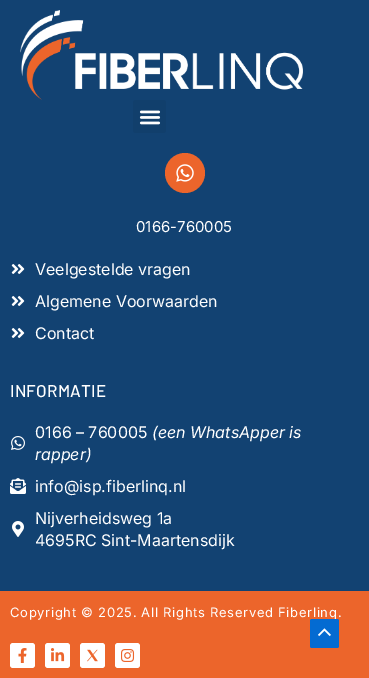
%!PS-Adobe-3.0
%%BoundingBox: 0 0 369 678
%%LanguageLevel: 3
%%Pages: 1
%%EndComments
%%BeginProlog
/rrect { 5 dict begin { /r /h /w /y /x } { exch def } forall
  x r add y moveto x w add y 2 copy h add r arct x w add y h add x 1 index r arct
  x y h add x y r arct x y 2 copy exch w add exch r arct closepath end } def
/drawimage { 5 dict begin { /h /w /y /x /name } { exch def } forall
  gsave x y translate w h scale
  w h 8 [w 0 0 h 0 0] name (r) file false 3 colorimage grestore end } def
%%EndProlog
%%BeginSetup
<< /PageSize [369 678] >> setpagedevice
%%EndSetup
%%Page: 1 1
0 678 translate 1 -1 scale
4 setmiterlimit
0.071 0.259 0.447 setrgbcolor
0 0 369 678 rectfill
(images/1.raw) 20 10 283 90 drawimage
0.067 0.247 0.424 setrgbcolor
133 100 33 33 3 rrect fill
(images/2.raw) 139 110 22 15 drawimage
0.925 0.396 0.169 setrgbcolor
newpath 185 173 20 0 360 arc closepath fill
(images/3.raw) 176 164 18 18 drawimage
(images/4.raw) 11 264 14 10 drawimage
(images/4.raw) 11 296 14 10 drawimage
(images/4.raw) 11 328 14 10 drawimage
(images/5.raw) 11 436 14 14 drawimage
(images/6.raw) 10 478 16 16 drawimage
(images/7.raw) 12 521 12 16 drawimage
0 591 369 87 rectfill
1 setgray
10 643 25 25 3 rrect fill
(images/8.raw) 18 648 9 15 drawimage
45 643 25 25 3 rrect fill
(images/9.raw) 51 648 14 14 drawimage
80 643 25 25 3 rrect fill
(images/10.raw) 87 649 11 13 drawimage
115 643 25 25 3 rrect fill
(images/11.raw) 121 649 14 13 drawimage
/Inter-Regular [15 0 0 -15 0 0] selectfont
136 232 moveto (0166-760005) show
/Inter-Regular [16 0 0 -16 0 0] selectfont
35 275 moveto (Veelgestelde vragen) show
35 307 moveto (Algemene Voorwaarden) show
35 339 moveto (Contact) show
/Barlow-Medium [17 0 0 -17 0 0] selectfont
10 397 moveto 0.25 0 (INFORMATIE) ashow
/Inter-Regular [16 0 0 -16 0 0] selectfont
35 438 moveto (0166 – 760005) show
/Inter-Italic [16 0 0 -16 0 0] selectfont
152 438 moveto (\(een WhatsApper is) show
35 460 moveto (rapper\)) show
/Inter-Regular [16 0 0 -16 0 0] selectfont
35 492 moveto (info@isp.fiberlinq.nl) show
35 524 moveto (Nijverheidsweg 1a) show
35 546 moveto (4695RC Sint-Maartensdijk) show
/Inter-Regular [13 0 0 -13 0 0] selectfont
10 617 moveto 0.7 0 (Copyright © 2025. All Rights Reserved Fiberlinq.) ashow
0.016 0.42 0.824 setrgbcolor
310 619 29 29 2 rrect fill
(images/12.raw) 318 628 13 9 drawimage
showpage
%%EOF
